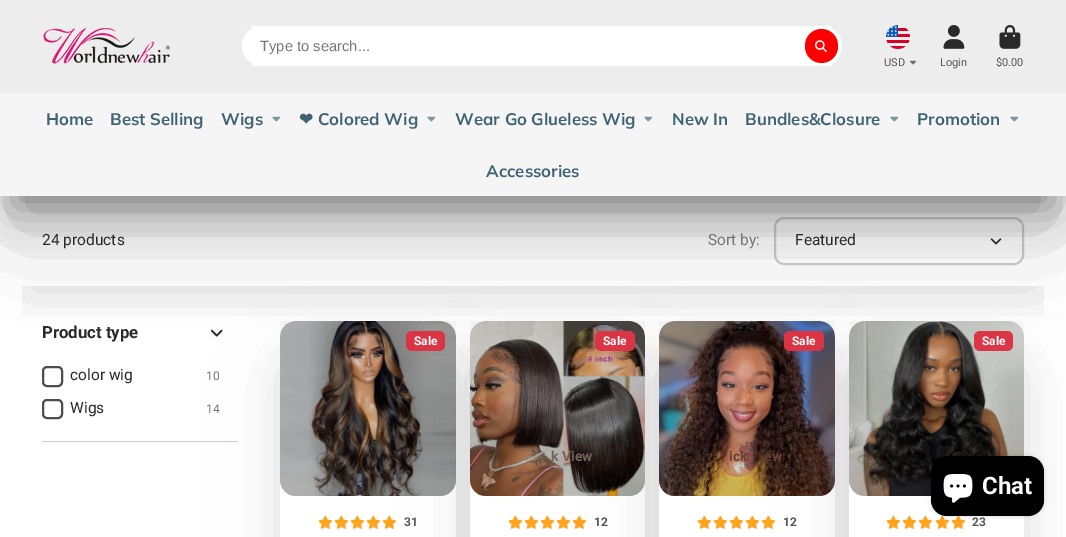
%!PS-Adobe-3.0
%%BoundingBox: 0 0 1066 537
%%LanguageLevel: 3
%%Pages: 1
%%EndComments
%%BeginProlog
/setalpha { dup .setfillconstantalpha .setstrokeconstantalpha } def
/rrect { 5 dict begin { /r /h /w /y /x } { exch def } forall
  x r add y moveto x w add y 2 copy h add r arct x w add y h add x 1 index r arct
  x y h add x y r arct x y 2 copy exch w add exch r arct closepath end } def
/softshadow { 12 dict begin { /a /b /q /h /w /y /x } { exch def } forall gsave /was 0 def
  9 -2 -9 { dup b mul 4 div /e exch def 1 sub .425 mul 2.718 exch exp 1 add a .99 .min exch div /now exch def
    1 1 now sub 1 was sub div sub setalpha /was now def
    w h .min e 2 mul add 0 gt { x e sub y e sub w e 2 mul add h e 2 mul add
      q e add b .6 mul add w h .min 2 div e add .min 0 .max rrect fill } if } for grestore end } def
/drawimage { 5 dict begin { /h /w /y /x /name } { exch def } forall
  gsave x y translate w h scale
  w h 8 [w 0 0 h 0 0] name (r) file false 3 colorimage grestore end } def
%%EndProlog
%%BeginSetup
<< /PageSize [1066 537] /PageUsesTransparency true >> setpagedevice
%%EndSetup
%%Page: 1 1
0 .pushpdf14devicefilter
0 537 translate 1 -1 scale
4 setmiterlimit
1 setgray
0 0 1066 537 rectfill
gsave
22 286 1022 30 rectclip
0 setgray
30 256 1006 30 0 30 0.15 softshadow
grestore
0.8 setgray
2 setlinewidth
775 218 248 46 9 rrect stroke
(images/8.raw) 990 238 12 7 drawimage
0.11 setgray
14 40 1038 168 0 19 0.4 softshadow
(images/9.raw) 210 329 13 8 drawimage
0.8 setgray
42 441 196 1 rectfill
0.11 setgray
306 374 124 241 0 26 0.3 softshadow
298 382 141 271 0 44 0.1 softshadow
1 setgray
280 321 176 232 16 rrect fill
(images/10.raw) 280 321 176 175 drawimage
0.15 setalpha
0 setgray
280 321 176 175 16 rrect fill
1 setalpha
0.863 0.208 0.271 setrgbcolor
406 331 39 20 6 rrect fill
0.11 setgray
496 374 123 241 0 26 0.3 softshadow
(images/11.raw) 350 515 14 14 drawimage
(images/11.raw) 366 515 14 14 drawimage
(images/11.raw) 382 515 14 14 drawimage
488 382 140 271 0 44 0.1 softshadow
1 setgray
470 321 175 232 16 rrect fill
(images/12.raw) 470 321 175 175 drawimage
0.15 setalpha
0 setgray
470 321 175 175 16 rrect fill
1 setalpha
0.863 0.208 0.271 setrgbcolor
595 331 40 20 6 rrect fill
0.11 setgray
685 374 124 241 0 26 0.3 softshadow
(images/11.raw) 540 515 14 14 drawimage
(images/11.raw) 556 515 14 14 drawimage
(images/11.raw) 572 515 14 14 drawimage
677 382 141 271 0 44 0.1 softshadow
1 setgray
659 321 176 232 16 rrect fill
(images/13.raw) 659 321 176 175 drawimage
0.15 setalpha
0 setgray
659 321 176 175 16 rrect fill
1 setalpha
0.863 0.208 0.271 setrgbcolor
784 331 40 20 6 rrect fill
0.11 setgray
875 374 123 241 0 26 0.3 softshadow
(images/11.raw) 729 515 14 14 drawimage
(images/11.raw) 745 515 14 14 drawimage
(images/11.raw) 761 515 14 14 drawimage
867 382 140 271 0 44 0.1 softshadow
1 setgray
849 321 175 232 16 rrect fill
(images/14.raw) 849 321 175 175 drawimage
0.15 setalpha
0 setgray
849 321 175 175 16 rrect fill
1 setalpha
0.863 0.208 0.271 setrgbcolor
974 331 39 20 6 rrect fill
0.11 setgray
14 58 1038 168 0 44 0.3 softshadow
0.929 setgray
0 0 1066 93 rectfill
(images/1.raw) 43 28 128 36 drawimage
1 setgray
252 26 580 40 rectfill
242 26 600 40 20 rrect fill
1 0 0 setrgbcolor
805 29 33 34 16.5 rrect fill
(images/2.raw) 815 40 12 12 drawimage
(images/3.raw) 886 25 24 24 drawimage
(images/4.raw) 909 60 8 5 drawimage
(images/5.raw) 943 25 22 24 drawimage
(images/6.raw) 999 25 22 24 drawimage
0.961 setgray
0 93 1066 103 rectfill
(images/7.raw) 272 116 9 6 drawimage
(images/7.raw) 427 116 9 6 drawimage
(images/7.raw) 644 116 9 6 drawimage
(images/7.raw) 890 116 9 6 drawimage
(images/7.raw) 1010 116 9 6 drawimage
0.302 setgray
43 367 19 19 4 rrect stroke
43 400 19 18 4 rrect stroke
(images/11.raw) 318 515 14 14 drawimage
(images/11.raw) 334 515 14 14 drawimage
(images/11.raw) 508 515 14 14 drawimage
(images/11.raw) 524 515 14 14 drawimage
(images/11.raw) 697 515 14 14 drawimage
(images/11.raw) 713 515 14 14 drawimage
(images/11.raw) 886 515 14 14 drawimage
(images/11.raw) 902 515 14 14 drawimage
(images/11.raw) 918 515 14 14 drawimage
(images/11.raw) 935 515 14 14 drawimage
(images/15.raw) 951 516 14 13 drawimage
0 setgray
931 456 113 60 16 2.5 0.15 softshadow
931 456 113 60 16 rrect fill
(images/16.raw) 943 474 30 29 drawimage
/LiberationSans-Regular [14.75 0 0 -14.75 0 0] selectfont
0.463 setgray
260 51 moveto (Type to search...) show
/Roboto-Regular [11 0 0 -11 0 0] selectfont
0.329 setgray
884 66 moveto (USD) show
940 66 moveto (Login) show
996 66 moveto ($0.00) show
/Muli-Bold [16.75 0 0 -16.75 0 0] selectfont
0.247 0.388 0.447 setrgbcolor
46 125 moveto (Home) show
110 125 moveto (Best Selling) show
221 125 moveto (Wigs) show
/DejaVuSans-Bold [16.75 0 0 -16.75 0 0] selectfont
299 125 moveto (❤) show
/Muli-Bold [16.75 0 0 -16.75 0 0] selectfont
318 125 moveto (Colored Wig) show
455 125 moveto (Wear Go Glueless Wig) show
672 125 moveto (New In) show
745 125 moveto (Bundles&Closure) show
917 125 moveto (Promotion) show
486 177 moveto (Accessories) show
/Roboto-Regular [15.5 0 0 -15.5 0 0] selectfont
0.161 setgray
42 245 moveto (24 products) show
0.463 setgray
708 245 moveto (Sort by:) show
0.161 setgray
795 245 moveto (Featured) show
/Roboto-Bold [16.75 0 0 -16.75 0 0] selectfont
42 338 moveto (Product type) show
/Roboto-Regular [15.5 0 0 -15.5 0 0] selectfont
70 380 moveto (color wig) show
/Roboto-Regular [12 0 0 -12 0 0] selectfont
0.463 setgray
206 380 moveto (10) show
/Roboto-Regular [15.5 0 0 -15.5 0 0] selectfont
0.161 setgray
70 413 moveto (Wigs) show
/Roboto-Regular [12 0 0 -12 0 0] selectfont
0.463 setgray
206 413 moveto (14) show
/Roboto-Bold [12 0 0 -12 0 0] selectfont
1 setgray
414 345 moveto (Sale) show
0.329 setgray
404 526 moveto (31) show
1 setgray
603 345 moveto (Sale) show
/Roboto-Bold [14 0 0 -14 0 0] selectfont
0.455 0.388 0.349 setrgbcolor
551 461 moveto (k View) show
/Roboto-Bold [12 0 0 -12 0 0] selectfont
0.329 setgray
594 526 moveto (12) show
1 setgray
792 345 moveto (Sale) show
/Roboto-Bold [14 0 0 -14 0 0] selectfont
0.408 0.255 0.196 setrgbcolor
729 461 moveto (ick) show
764 461 moveto (ew) show
/Roboto-Bold [12 0 0 -12 0 0] selectfont
0.329 setgray
783 526 moveto (12) show
1 setgray
982 345 moveto (Sale) show
0.329 setgray
972 526 moveto (23) show
/Roboto-Bold [24 0 0 -24 0 0] selectfont
1 setgray
982 494 moveto (Chat) show
.poppdf14devicefilter showpage
%%EOF
